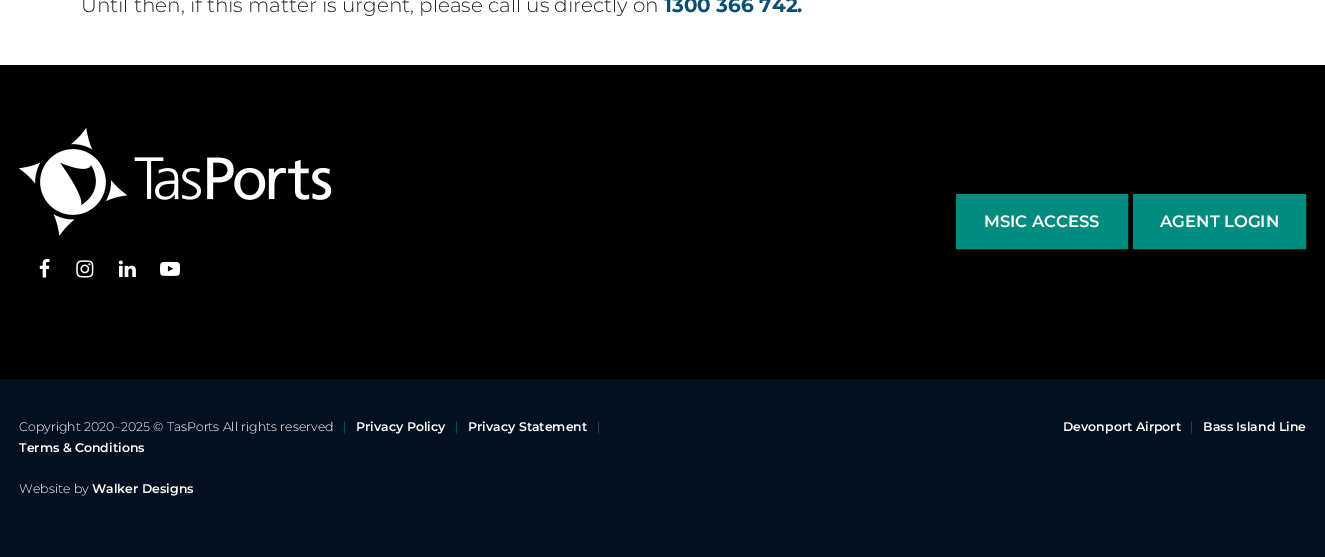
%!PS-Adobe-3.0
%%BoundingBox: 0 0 1325 557
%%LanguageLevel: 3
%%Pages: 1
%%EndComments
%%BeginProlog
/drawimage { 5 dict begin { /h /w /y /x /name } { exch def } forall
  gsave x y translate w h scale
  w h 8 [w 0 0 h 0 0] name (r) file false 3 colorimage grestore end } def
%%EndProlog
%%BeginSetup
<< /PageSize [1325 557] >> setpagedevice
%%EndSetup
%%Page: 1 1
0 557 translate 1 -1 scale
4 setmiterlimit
1 setgray
0 0 1325 557 rectfill
0 setgray
0 65 1325 314 rectfill
(images/1.raw) 19 128 312 108 drawimage
(images/2.raw) 39 258 11 20 drawimage
(images/3.raw) 76 260 18 18 drawimage
(images/4.raw) 118 260 18 17 drawimage
(images/5.raw) 160 261 20 15 drawimage
0 0.553 0.502 setrgbcolor
newpath 957.5 195.5 moveto 1126.5 195.5 lineto 1126.5 247.5 lineto 957.5 247.5 lineto closepath gsave fill grestore
3 setlinewidth
stroke
newpath 1134.5 195.5 moveto 1304.5 195.5 lineto 1304.5 247.5 lineto 1134.5 247.5 lineto closepath gsave fill grestore
stroke
0.012 0.063 0.122 setrgbcolor
0 379 1325 178 rectfill
/Montserrat-Light [20 0 0 -20 0 0] selectfont
0.129 0.145 0.161 setrgbcolor
81 12 moveto (Until then, if this matter is urgent, please call us directly on) show
/Montserrat-Bold [20 0 0 -20 0 0] selectfont
0.027 0.31 0.443 setrgbcolor
664 12 moveto (1300 366 742.) show
/Montserrat-SemiBold [16.5 0 0 -16.5 0 0] selectfont
1 setgray
984 227 moveto (MSIC ACCESS) show
1160 227 moveto (AGENT LOGIN) show
/Montserrat-Light [12.5 0 0 -12.5 0 0] selectfont
19 431 moveto (Copyright 2020–2025 © TasPorts All rights reserved) show
0 0.553 0.502 setrgbcolor
343 431 moveto (|) show
/Montserrat-SemiBold [12.5 0 0 -12.5 0 0] selectfont
1 setgray
356 431 moveto (Privacy Policy) show
/Montserrat-Light [12.5 0 0 -12.5 0 0] selectfont
0 0.553 0.502 setrgbcolor
455 431 moveto (|) show
/Montserrat-SemiBold [12.5 0 0 -12.5 0 0] selectfont
1 setgray
468 431 moveto (Privacy Statement) show
/Montserrat-Light [12.5 0 0 -12.5 0 0] selectfont
0 0.553 0.502 setrgbcolor
597 431 moveto (|) show
/Montserrat-SemiBold [12.5 0 0 -12.5 0 0] selectfont
1 setgray
19 452 moveto (Terms & Conditions) show
1063 431 moveto (Devonport Airport) show
/Montserrat-Light [12.5 0 0 -12.5 0 0] selectfont
0 0.553 0.502 setrgbcolor
1190 431 moveto (|) show
/Montserrat-SemiBold [12.5 0 0 -12.5 0 0] selectfont
1 setgray
1203 431 moveto (Bass Island Line) show
/Montserrat-Light [12.5 0 0 -12.5 0 0] selectfont
19 493 moveto (Website by) show
/Montserrat-SemiBold [12.5 0 0 -12.5 0 0] selectfont
92 493 moveto (Walker Designs) show
showpage
%%EOF
